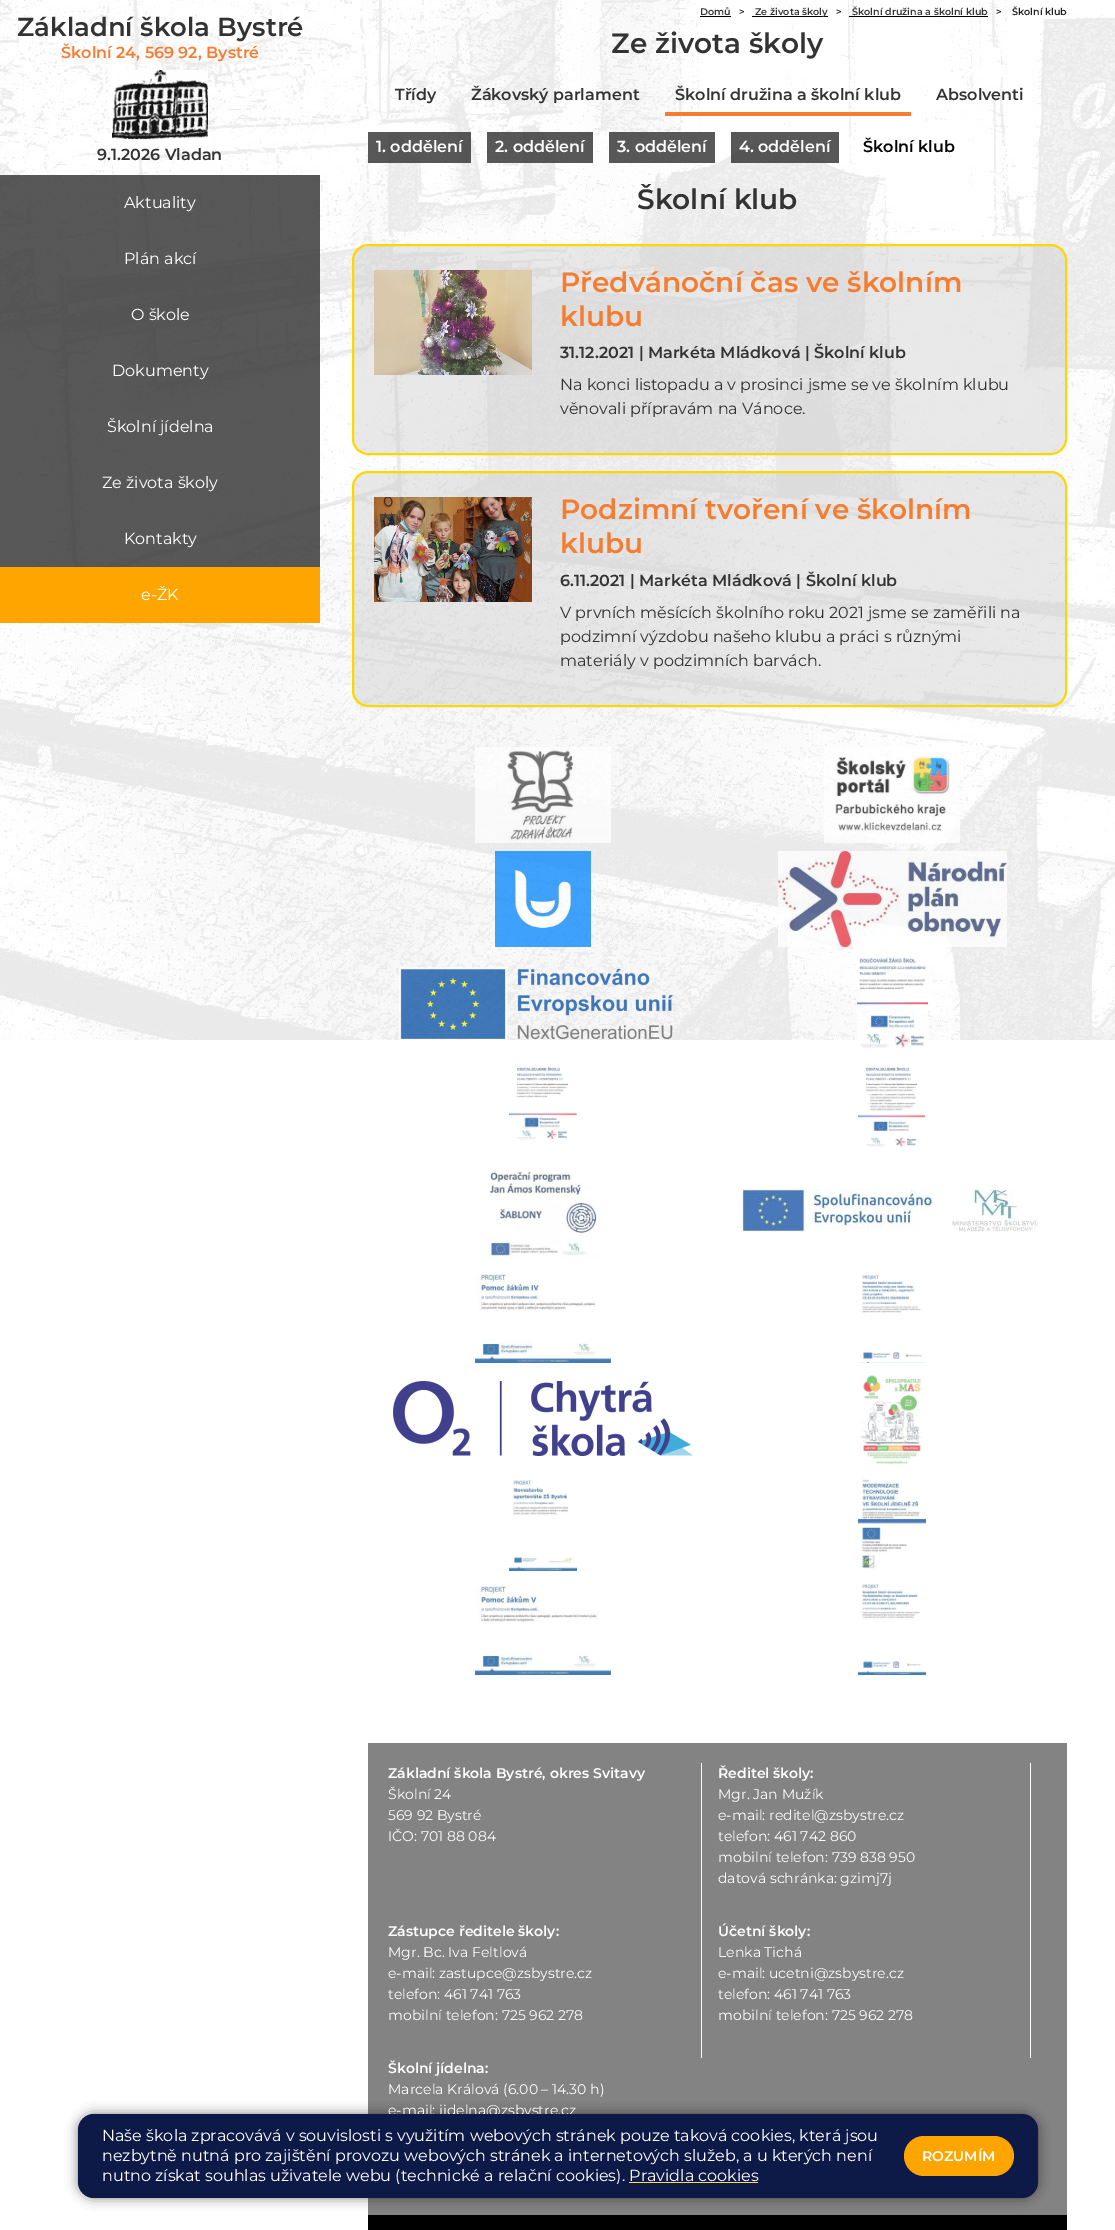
%!PS-Adobe-3.0
%%BoundingBox: 0 0 1115 2230
%%LanguageLevel: 3
%%Pages: 1
%%EndComments
%%BeginProlog
/setalpha { dup .setfillconstantalpha .setstrokeconstantalpha } def
/rrect { 5 dict begin { /r /h /w /y /x } { exch def } forall
  x r add y moveto x w add y 2 copy h add r arct x w add y h add x 1 index r arct
  x y h add x y r arct x y 2 copy exch w add exch r arct closepath end } def
/softshadow { 12 dict begin { /a /b /q /h /w /y /x } { exch def } forall gsave /was 0 def
  9 -2 -9 { dup b mul 4 div /e exch def 1 sub .425 mul 2.718 exch exp 1 add a .99 .min exch div /now exch def
    1 1 now sub 1 was sub div sub setalpha /was now def
    w h .min e 2 mul add 0 gt { x e sub y e sub w e 2 mul add h e 2 mul add
      q e add b .6 mul add w h .min 2 div e add .min 0 .max rrect fill } if } for grestore end } def
/drawimage { 5 dict begin { /h /w /y /x /name } { exch def } forall
  gsave x y translate w h scale
  w h 8 [w 0 0 h 0 0] name (r) file false 3 colorimage grestore end } def
%%EndProlog
%%BeginSetup
<< /PageSize [1115 2230] /PageUsesTransparency true >> setpagedevice
%%EndSetup
%%Page: 1 1
0 .pushpdf14devicefilter
0 2230 translate 1 -1 scale
4 setmiterlimit
1 setgray
0 0 1115 2230 rectfill
(images/1.raw) 0 0 1115 1040 drawimage
(images/2.raw) 112 70 96 70 drawimage
0.82 setalpha
0.2 setgray
0 175 320 56 rectfill
0 231 320 56 rectfill
0 287 320 56 rectfill
0 343 320 56 rectfill
0 399 320 56 rectfill
0 455 320 56 rectfill
0 511 320 56 rectfill
1 setalpha
1 0.647 0 setrgbcolor
0 567 320 56 rectfill
0 setgray
700 16 31 1 rectfill
752 16 76 1 rectfill
849 16 139 1 rectfill
0.957 0.49 0.192 setrgbcolor
665 112 246 4 rectfill
0.82 setalpha
0.2 setgray
368 132 103 31 rectfill
487 132 106 31 rectfill
609 132 106 31 rectfill
731 132 108 31 rectfill
1 setalpha
1 setgray
855 132 9 31 rectfill
0.4 setalpha
0.784 setgray
353 245 713 209 15 rrect fill
1 setalpha
1 0.843 0 setrgbcolor
2 setlinewidth
353 245 713 209 15 rrect stroke
(images/3.raw) 374 270 158 105 drawimage
0.4 setalpha
0.784 setgray
353 472 713 234 15 rrect fill
1 setalpha
1 0.843 0 setrgbcolor
353 472 713 234 15 rrect stroke
(images/4.raw) 374 497 158 105 drawimage
(images/5.raw) 475 747 136 96 drawimage
(images/6.raw) 824 747 136 96 drawimage
(images/7.raw) 495 851 96 96 drawimage
(images/8.raw) 778 851 229 96 drawimage
(images/9.raw) 399 967 274 73 drawimage
(images/10.raw) 857 955 71 93 drawimage
(images/11.raw) 509 1066 68 74 drawimage
(images/12.raw) 858 1066 68 82 drawimage
(images/13.raw) 488 1170 114 89 drawimage
(images/14.raw) 742 1189 296 43 drawimage
(images/15.raw) 475 1274 136 89 drawimage
(images/16.raw) 858 1274 68 89 drawimage
(images/17.raw) 393 1381 300 75 drawimage
(images/18.raw) 860 1375 63 90 drawimage
(images/19.raw) 509 1479 68 92 drawimage
(images/20.raw) 858 1479 68 90 drawimage
(images/21.raw) 475 1586 136 89 drawimage
(images/22.raw) 858 1584 68 91 drawimage
0.514 setgray
368 1743 699 472 rectfill
1 setgray
701 1763 1 295 rectfill
1030 1763 1 295 rectfill
0 setgray
368 2215 699 15 rectfill
78 2114 960 84 16 6 0.5 softshadow
/Montserrat-SemiBold [26 0 0 -26 0 0] selectfont
0.2 setgray
17 36 moveto (Základní škola Bystré) show
/Montserrat-SemiBold [16 0 0 -16 0 0] selectfont
0.957 0.49 0.192 setrgbcolor
61 58 moveto (Školní 24, 569 92, Bystré) show
0.2 setgray
97 160 moveto (9.1.2026 Vladan) show
/Montserrat-Regular [16 0 0 -16 0 0] selectfont
1 setgray
124 208 moveto (Aktuality) show
124 264 moveto (Plán akcí) show
131 320 moveto (O škole) show
112 376 moveto (Dokumenty) show
107 432 moveto (Školní jídelna) show
102 488 moveto (Ze života školy) show
124 544 moveto (Kontakty) show
141 600 moveto (e-ŽK) show
/Montserrat-SemiBold [9.6 0 0 -9.6 0 0] selectfont
0.2 setgray
700 15 moveto (Domů) show
0.133 setgray
739 15 moveto (>) show
0.2 setgray
755 15 moveto (Ze života školy) show
0.133 setgray
836 15 moveto (>) show
0.2 setgray
852 15 moveto (Školní družina a školní klub) show
0.133 setgray
996 15 moveto (>) show
1012 15 moveto (Školní klub) show
/Montserrat-SemiBold [28 0 0 -28 0 0] selectfont
0.2 setgray
611 53 moveto (Ze života školy) show
/Montserrat-SemiBold [16 0 0 -16 0 0] selectfont
395 100 moveto (Třídy) show
471 100 moveto (Žákovský parlament) show
675 100 moveto (Školní družina a školní klub) show
936 100 moveto (Absolventi) show
1 setgray
376 152 moveto (1. oddělení) show
495 152 moveto (2. oddělení) show
617 152 moveto (3. oddělení) show
739 152 moveto (4. oddělení) show
0 setgray
863 152 moveto (Školní klub) show
/Montserrat-SemiBold [28 0 0 -28 0 0] selectfont
0.2 setgray
637 209 moveto (Školní klub) show
0.957 0.49 0.192 setrgbcolor
560 292 moveto (Předvánoční čas ve školním) show
560 326 moveto (klubu) show
/Montserrat-SemiBold [16 0 0 -16 0 0] selectfont
0.2 setgray
560 358 moveto (31.12.2021 | Markéta Mládková | Školní klub) show
/Montserrat-Regular [16 0 0 -16 0 0] selectfont
560 390 moveto (Na konci listopadu a v prosinci jsme se ve školním klubu) show
560 414 moveto (věnovali přípravám na Vánoce.) show
/Montserrat-SemiBold [28 0 0 -28 0 0] selectfont
0.957 0.49 0.192 setrgbcolor
560 519 moveto (Podzimní tvoření ve školním) show
560 553 moveto (klubu) show
/Montserrat-SemiBold [16 0 0 -16 0 0] selectfont
0.2 setgray
560 586 moveto (6.11.2021 | Markéta Mládková | Školní klub) show
/Montserrat-Regular [16 0 0 -16 0 0] selectfont
560 618 moveto (V prvních měsících školního roku 2021 jsme se zaměřili na) show
560 642 moveto (podzimní výzdobu našeho klubu a práci s různými) show
560 666 moveto (materiály v podzimních barvách.) show
/Montserrat-SemiBold [14 0 0 -14 0 0] selectfont
1 setgray
388 1778 moveto (Základní škola Bystré, okres Svitavy) show
/Montserrat-Regular [14 0 0 -14 0 0] selectfont
388 1799 moveto (Školní 24) show
388 1820 moveto (569 92 Bystré) show
388 1841 moveto (IČO: 701 88 084) show
/Montserrat-SemiBold [14 0 0 -14 0 0] selectfont
718 1778 moveto (Ředitel školy:) show
/Montserrat-Regular [14 0 0 -14 0 0] selectfont
718 1799 moveto (Mgr. Jan Mužík) show
718 1820 moveto (e-mail: reditel@zsbystre.cz) show
718 1841 moveto (telefon: 461 742 860) show
718 1862 moveto (mobilní telefon: 739 838 950) show
718 1883 moveto (datová schránka: gzimj7j) show
/Montserrat-SemiBold [14 0 0 -14 0 0] selectfont
388 1936 moveto (Zástupce ředitele školy:) show
/Montserrat-Regular [14 0 0 -14 0 0] selectfont
388 1957 moveto (Mgr. Bc. Iva Feltlová) show
388 1978 moveto (e-mail: zastupce@zsbystre.cz) show
388 1999 moveto (telefon: 461 741 763) show
388 2020 moveto (mobilní telefon: 725 962 278) show
/Montserrat-SemiBold [14 0 0 -14 0 0] selectfont
718 1936 moveto (Účetní školy:) show
/Montserrat-Regular [14 0 0 -14 0 0] selectfont
718 1957 moveto (Lenka Tichá) show
718 1978 moveto (e-mail: ucetni@zsbystre.cz) show
718 1999 moveto (telefon: 461 741 763) show
718 2020 moveto (mobilní telefon: 725 962 278) show
/Montserrat-SemiBold [14 0 0 -14 0 0] selectfont
388 2073 moveto (Školní jídelna:) show
/Montserrat-Regular [14 0 0 -14 0 0] selectfont
388 2094 moveto (Marcela Králová \(6.00 – 14.30 h\)) show
388 2115 moveto (e-mail: jidelna@zsbystre.cz) show
0.051 0.098 0.275 setrgbcolor
78 2114 960 84 16 rrect fill
/Montserrat-Regular [16 0 0 -16 0 0] selectfont
1 setgray
102 2141 moveto (Naše škola zpracovává v souvislosti s využitím webových stránek pouze taková cookies, která jsou) show
102 2161 moveto (nezbytně nutná pro zajištění provozu webových stránek a internetových služeb, a u kterých není) show
102 2181 moveto (nutno získat souhlas uživatele webu \(technické a relační cookies\). Pravidla cookies) show
1 0.871 0.333 setrgbcolor
629 2182 129 1 rectfill
1 0.647 0 setrgbcolor
904 2136 110 40 20 rrect fill
/Montserrat-SemiBold [14 0 0 -14 0 0] selectfont
1 setgray
922 2161 moveto (ROZUMÍM) show
.poppdf14devicefilter showpage
%%EOF
